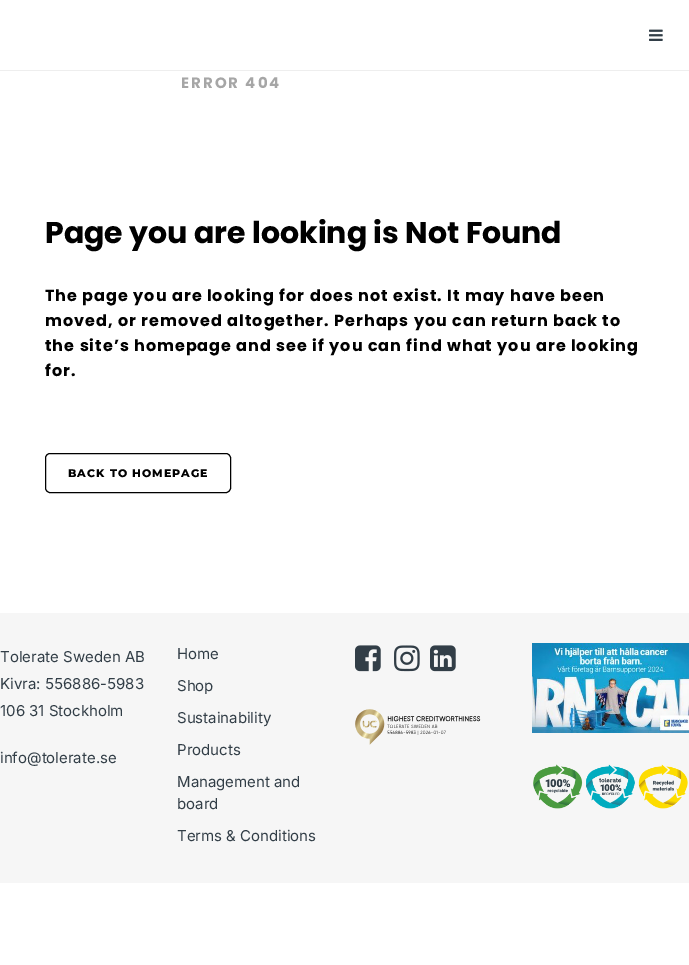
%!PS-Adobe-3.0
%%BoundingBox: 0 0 689 965
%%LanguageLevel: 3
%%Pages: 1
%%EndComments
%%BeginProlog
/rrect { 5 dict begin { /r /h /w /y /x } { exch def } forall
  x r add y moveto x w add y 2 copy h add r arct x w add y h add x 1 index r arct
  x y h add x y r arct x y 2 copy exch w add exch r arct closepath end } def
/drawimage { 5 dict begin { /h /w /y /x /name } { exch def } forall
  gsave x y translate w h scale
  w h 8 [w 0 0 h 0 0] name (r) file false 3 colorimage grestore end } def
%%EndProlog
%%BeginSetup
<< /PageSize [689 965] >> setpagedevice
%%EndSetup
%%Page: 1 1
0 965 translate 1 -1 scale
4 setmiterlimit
1 setgray
0 0 689 965 rectfill
0.933 setgray
0 70 689 1 rectfill
(images/1.raw) 649 29 14 12 drawimage
0 setgray
45.5 453.5 185 39 4.5 rrect stroke
0.965 setgray
0 613 689 270 rectfill
(images/2.raw) 355 645 26 27 drawimage
(images/3.raw) 394 645 26 27 drawimage
(images/4.raw) 430 645 26 27 drawimage
(images/5.raw) 355 709 126 36 drawimage
(images/6.raw) 532 643 157 90 drawimage
(images/7.raw) 533 764 155 45 drawimage
/Poppins-Bold [15 0 0 -15 0 0] selectfont
0.651 setgray
181 88 moveto 2 0 (ERROR 404) ashow
/Poppins-Bold [30 0 0 -30 0 0] selectfont
0 setgray
45 243 moveto (Page you are looking is Not Found) show
/Poppins-Bold [16 0 0 -16 0 0] selectfont
45 301 moveto 1 0 (The page you are looking for does not exist. It may have been) ashow
45 326 moveto 1 0 (moved, or removed altogether. Perhaps you can return back to) ashow
45 351 moveto 1 0 (the site’s homepage and see if you can find what you are looking) ashow
45 376 moveto 1 0 (for.) ashow
/Montserrat-ExtraBold [11 0 0 -11 0 0] selectfont
68 477 moveto 1 0 (BACK TO HOMEPAGE) ashow
/Inter-Regular [15 0 0 -15 0 0] selectfont
0.196 0.243 0.278 setrgbcolor
0 662 moveto (Tolerate Sweden AB) show
0 689 moveto (Kivra: 556886-5983) show
0 716 moveto (106 31 Stockholm) show
0 763 moveto (info@tolerate.se) show
177 659 moveto (Home) show
177 691 moveto (Shop) show
177 723 moveto (Sustainability) show
177 755 moveto (Products) show
177 787 moveto (Management and) show
177 809 moveto (board) show
177 841 moveto (Terms & Conditions) show
showpage
%%EOF
